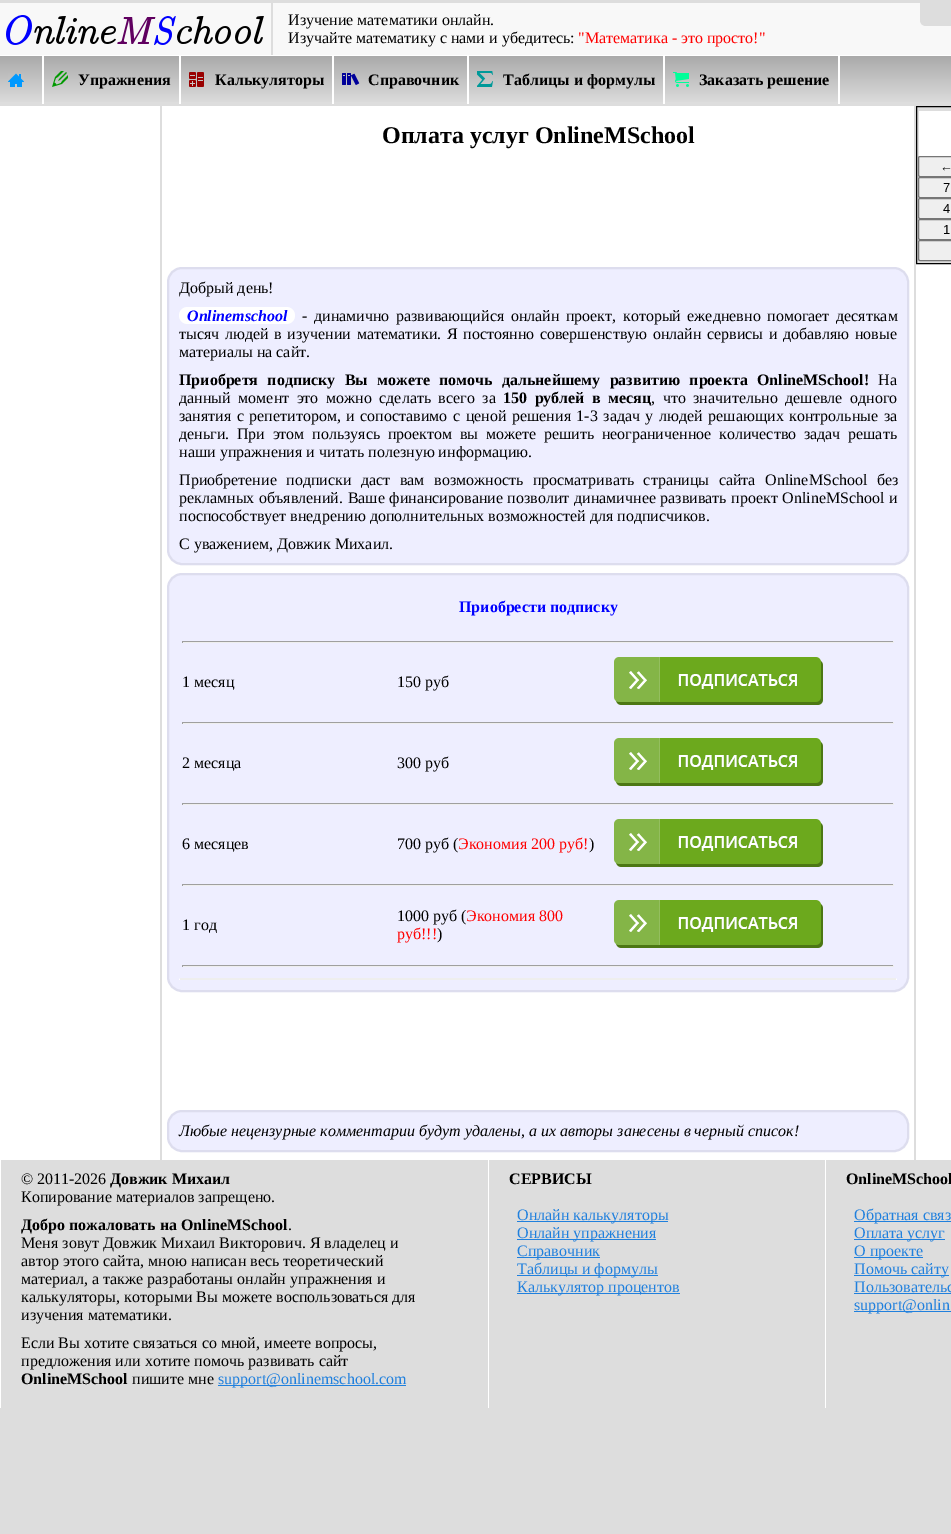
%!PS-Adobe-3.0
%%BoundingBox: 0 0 951 1534
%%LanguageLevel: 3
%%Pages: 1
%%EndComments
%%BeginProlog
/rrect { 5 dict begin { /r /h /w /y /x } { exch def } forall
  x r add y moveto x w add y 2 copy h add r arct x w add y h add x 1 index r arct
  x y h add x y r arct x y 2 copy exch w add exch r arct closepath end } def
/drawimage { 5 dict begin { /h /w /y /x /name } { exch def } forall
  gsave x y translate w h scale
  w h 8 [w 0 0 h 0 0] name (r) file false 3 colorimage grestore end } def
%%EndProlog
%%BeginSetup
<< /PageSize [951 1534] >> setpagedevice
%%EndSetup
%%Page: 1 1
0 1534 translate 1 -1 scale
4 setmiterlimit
0.867 setgray
0 0 951 1534 rectfill
0.973 setgray
0 3 951 52 rectfill
1 setgray
0 55 951 1 rectfill
0.867 setgray
271 3 2 52 rectfill
(images/1.raw) 6 15 258 30 drawimage
newpath 920 3 moveto 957 3 lineto 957 20 lineto 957 23.5 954.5 26 951 26 curveto 926 26 lineto 922.5 26 920 23.5 920 20 curveto closepath fill
gsave newpath 0 56 moveto 951 56 lineto 951 102 lineto 0 102 lineto closepath clip newpath
<< /ShadingType 2 /ColorSpace /DeviceRGB /Coords [0 104 0 56] /Extend [true true] /Function << /FunctionType 2 /Domain [0 1] /C0 [0.867 0.867 0.867] /C1 [0.667 0.667 0.667] /N 1 >> >> shfill grestore
1 setgray
42 56 2 48 rectfill
(images/2.raw) 8 73 16 14 drawimage
179 56 2 48 rectfill
(images/3.raw) 52 71 16 16 drawimage
332 56 2 48 rectfill
(images/4.raw) 189 72 15 15 drawimage
467 56 2 48 rectfill
(images/5.raw) 342 73 18 12 drawimage
663 56 2 48 rectfill
(images/6.raw) 477 71 16 16 drawimage
838 56 2 48 rectfill
(images/7.raw) 673 72 16 15 drawimage
0 106 160 1054 rectfill
162 106 752 1054 rectfill
0.933 0.933 1 setrgbcolor
168 268 740 296 14 rrect gsave fill grestore
0.867 0.867 0.933 setrgbcolor
2 setlinewidth
stroke
1 setgray
179 307 116 17 8.5 rrect fill
0.933 0.933 1 setrgbcolor
168 574 740 417 14 rrect gsave fill grestore
0.867 0.867 0.933 setrgbcolor
stroke
0.624 setgray
182 641 712 1 rectfill
0.933 setgray
893 641 1 2 rectfill
182 642 712 1 rectfill
0.624 setgray
182 641 1 2 rectfill
(images/8.raw) 614 657 209 48 drawimage
182 722 712 1 rectfill
0.933 setgray
893 722 1 2 rectfill
182 723 712 1 rectfill
0.624 setgray
182 722 1 2 rectfill
(images/8.raw) 614 738 209 48 drawimage
182 803 712 1 rectfill
0.933 setgray
893 803 1 2 rectfill
182 804 712 1 rectfill
0.624 setgray
182 803 1 2 rectfill
(images/8.raw) 614 819 209 48 drawimage
182 884 712 1 rectfill
0.933 setgray
893 884 1 2 rectfill
182 885 712 1 rectfill
0.624 setgray
182 884 1 2 rectfill
(images/8.raw) 614 900 209 48 drawimage
182 965 712 1 rectfill
0.933 setgray
893 965 1 2 rectfill
182 966 712 1 rectfill
0.624 setgray
182 965 1 2 rectfill
1 setgray
newpath 181 978 moveto 895 978 lineto 896 978 897 979 897 980 curveto 179 980 lineto 179 979 180 978 181 978 curveto closepath fill
0.933 setgray
180 978 716 2 rectfill
0.933 0.933 1 setrgbcolor
168 1111 740 40 14 rrect gsave fill grestore
0.867 0.867 0.933 setrgbcolor
stroke
1 setgray
916 264 35 896 rectfill
0 setgray
1 setlinewidth
916.5 106.5 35 157 rectstroke
1 setgray
919 111 32 45 rectfill
0.937 setgray
918.5 156.5 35 20 1.5 rrect gsave fill grestore
0.463 setgray
stroke
0.937 setgray
918.5 177.5 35 20 1.5 rrect gsave fill grestore
0.463 setgray
stroke
0.937 setgray
918.5 198.5 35 20 1.5 rrect gsave fill grestore
0.463 setgray
stroke
0.937 setgray
918.5 219.5 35 20 1.5 rrect gsave fill grestore
0.463 setgray
stroke
0.937 setgray
918.5 240.5 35 20 1.5 rrect gsave fill grestore
0.463 setgray
stroke
1 setgray
0 1160 1 248 rectfill
0.125 0.502 0.867 setrgbcolor
218 1385 188 1 rectfill
1 setgray
488 1160 1 248 rectfill
0.125 0.502 0.867 setrgbcolor
517 1221 151 1 rectfill
517 1239 139 1 rectfill
517 1257 83 1 rectfill
517 1275 141 1 rectfill
517 1293 163 1 rectfill
1 setgray
825 1160 1 248 rectfill
0.125 0.502 0.867 setrgbcolor
854 1221 97 1 rectfill
854 1239 91 1 rectfill
854 1257 69 1 rectfill
854 1275 95 1 rectfill
854 1293 97 1 rectfill
854 1311 97 1 rectfill
/LiberationSerif-Regular [16 0 0 -16 0 0] selectfont
0 setgray
288 25 moveto (Изучение математики онлайн.) show
288 43 moveto (Изучайте математику с нами и убедитесь:) show
1 0 0 setrgbcolor
578 43 moveto ("Математика - это просто!") show
/LiberationSerif-Bold [16 0 0 -16 0 0] selectfont
0 setgray
78 85 moveto (Упражнения) show
215 85 moveto (Калькуляторы) show
368 85 moveto (Справочник) show
503 85 moveto (Таблицы и формулы) show
699 85 moveto (Заказать решение) show
/LiberationSerif-Bold [24 0 0 -24 0 0] selectfont
382 143 moveto (Оплата услуг OnlineMSchool) show
/LiberationSerif-Regular [16 0 0 -16 0 0] selectfont
179 293 moveto (Добрый день!) show
/LiberationSerif-BoldItalic [16 0 0 -16 0 0] selectfont
0 0 1 setrgbcolor
187 321 moveto (Onlinemschool) show
/LiberationSerif-Regular [16 0 0 -16 0 0] selectfont
0 setgray
302 321 moveto 2.5 0 32 (- динамично развивающийся онлайн проект, который ежедневно помогает десяткам) widthshow
179 339 moveto 1.6 0 32 (тысяч людей в изучении математики. Я постоянно совершенствую онлайн сервисы и добавляю новые) widthshow
179 357 moveto (материалы на сайт.) show
/LiberationSerif-Bold [16 0 0 -16 0 0] selectfont
179 385 moveto 5.25 0 32 (Приобретя подписку Вы можете помочь дальнейшему развитию проекта OnlineMSchool!) widthshow
/LiberationSerif-Regular [16 0 0 -16 0 0] selectfont
878 385 moveto (На) show
179 403 moveto 3.5 0 32 (данный момент это можно сделать всего за) widthshow
/LiberationSerif-Bold [16 0 0 -16 0 0] selectfont
503 403 moveto 3.5 0 32 (150 рублей в месяц) widthshow
/LiberationSerif-Regular [16 0 0 -16 0 0] selectfont
651 403 moveto 3.5 0 32 (, что значительно дешевле одного) widthshow
179 421 moveto 1.5 0 32 (занятия с репетитором, и сопоставимо с ценой решения 1-3 задач у людей решающих контрольные за) widthshow
179 439 moveto 3.6 0 32 (деньги. При этом пользуясь проектом вы можете решить неограниченное количество задач решать) widthshow
179 457 moveto (наши упражнения и читать полезную информацию.) show
179 485 moveto 5.5 0 32 (Приобретение подписки даст вам возможность просматривать страницы сайта OnlineMSchool без) widthshow
179 503 moveto 0.5 0 32 (рекламных объявлений. Ваше финансирование позволит динамичнее развивать проект OnlineMSchool и) widthshow
179 521 moveto (поспособствует внедрению дополнительных возможностей для подписчиков.) show
179 549 moveto (С уважением, Довжик Михаил.) show
/LiberationSerif-Bold [16 0 0 -16 0 0] selectfont
0 0 1 setrgbcolor
459 612 moveto (Приобрести подписку) show
/LiberationSerif-Regular [16 0 0 -16 0 0] selectfont
0 setgray
182 687 moveto (1 месяц) show
397 687 moveto (150 руб) show
182 768 moveto (2 месяца) show
397 768 moveto (300 руб) show
182 849 moveto (6 месяцев) show
397 849 moveto (700 руб \() show
1 0 0 setrgbcolor
458 849 moveto (Экономия 200 руб!) show
0 setgray
589 849 moveto (\)) show
182 930 moveto (1 год) show
397 921 moveto (1000 руб \() show
1 0 0 setrgbcolor
466 921 moveto (Экономия 800) show
397 939 moveto (руб!!!) show
0 setgray
437 939 moveto (\)) show
/LiberationSerif-Italic [16 0 0 -16 0 0] selectfont
179 1136 moveto (Любые нецензурные комментарии будут удалены, а их авторы занесены в черный список!) show
/LiberationSans-Regular [13 0 0 -13 0 0] selectfont
940 171 moveto (←) show
943 192 moveto (7) show
943 213 moveto (4) show
943 234 moveto (1) show
/LiberationSerif-Regular [16 0 0 -16 0 0] selectfont
21 1184 moveto (© 2011-2026) show
/LiberationSerif-Bold [16 0 0 -16 0 0] selectfont
110 1184 moveto (Довжик Михаил) show
/LiberationSerif-Regular [16 0 0 -16 0 0] selectfont
21 1202 moveto (Копирование материалов запрещено.) show
/LiberationSerif-Bold [16 0 0 -16 0 0] selectfont
21 1230 moveto (Добро пожаловать на OnlineMSchool) show
/LiberationSerif-Regular [16 0 0 -16 0 0] selectfont
288 1230 moveto (.) show
21 1248 moveto (Меня зовут Довжик Михаил Викторович. Я владелец и) show
21 1266 moveto (автор этого сайта, мною написан весь теоретический) show
21 1284 moveto (материал, а также разработаны онлайн упражнения и) show
21 1302 moveto (калькуляторы, которыми Вы можете воспользоваться для) show
21 1320 moveto (изучения математики.) show
21 1348 moveto (Если Вы хотите связаться со мной, имеете вопросы,) show
21 1366 moveto (предложения или хотите помочь развивать сайт) show
/LiberationSerif-Bold [16 0 0 -16 0 0] selectfont
21 1384 moveto (OnlineMSchool) show
/LiberationSerif-Regular [16 0 0 -16 0 0] selectfont
132 1384 moveto (пишите мне) show
0.125 0.502 0.867 setrgbcolor
218 1384 moveto (support@onlinemschool.com) show
/LiberationSerif-Bold [16 0 0 -16 0 0] selectfont
0 setgray
509 1184 moveto (СЕРВИСЫ) show
/LiberationSerif-Regular [16 0 0 -16 0 0] selectfont
0.125 0.502 0.867 setrgbcolor
517 1220 moveto (Онлайн калькуляторы) show
517 1238 moveto (Онлайн упражнения) show
517 1256 moveto (Справочник) show
517 1274 moveto (Таблицы и формулы) show
517 1292 moveto (Калькулятор процентов) show
/LiberationSerif-Bold [16 0 0 -16 0 0] selectfont
0 setgray
846 1184 moveto (OnlineMSchool) show
/LiberationSerif-Regular [16 0 0 -16 0 0] selectfont
0.125 0.502 0.867 setrgbcolor
854 1220 moveto (Обратная связ) show
854 1238 moveto (Оплата услуг) show
854 1256 moveto (О проекте) show
854 1274 moveto (Помочь сайту) show
854 1292 moveto (Пользовательс) show
854 1310 moveto (support@onlin) show
showpage
%%EOF
